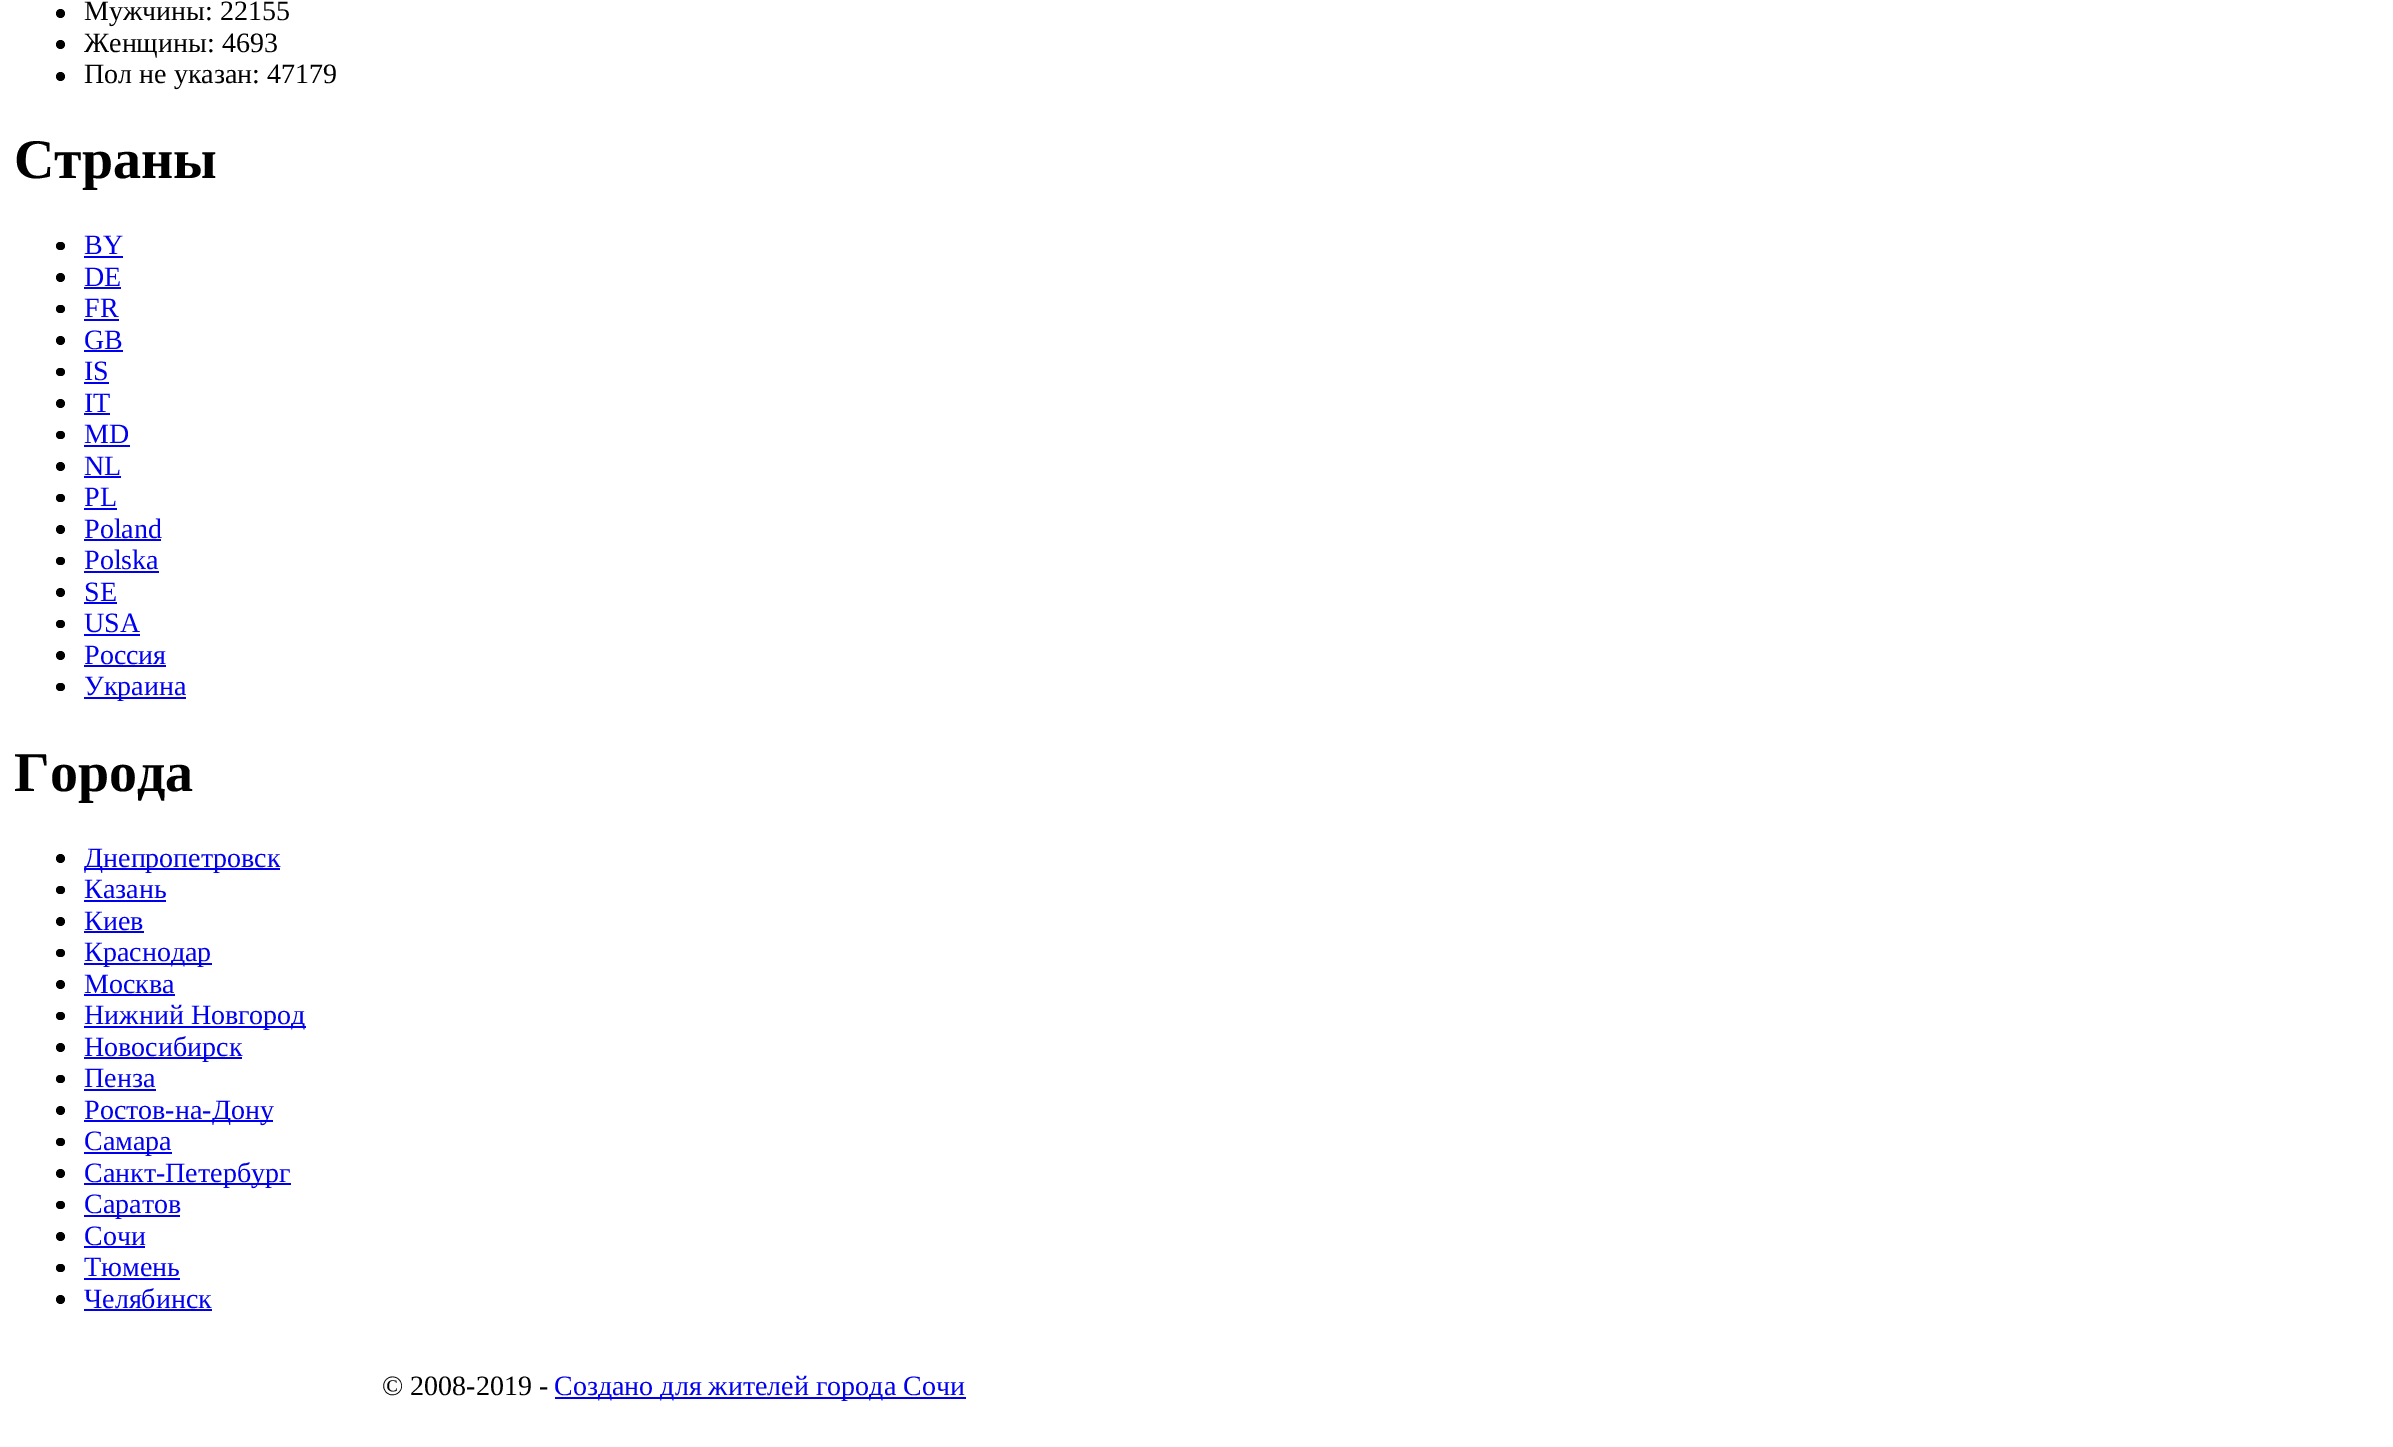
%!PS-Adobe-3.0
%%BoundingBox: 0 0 2393 1447
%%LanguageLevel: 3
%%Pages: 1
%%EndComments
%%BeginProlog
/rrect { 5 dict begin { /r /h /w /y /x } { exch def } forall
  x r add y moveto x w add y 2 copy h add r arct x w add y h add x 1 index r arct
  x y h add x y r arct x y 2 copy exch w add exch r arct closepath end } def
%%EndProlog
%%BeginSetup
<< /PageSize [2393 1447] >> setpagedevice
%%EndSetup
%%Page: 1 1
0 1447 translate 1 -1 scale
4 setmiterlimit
1 setgray
0 0 2393 1447 rectfill
0 setgray
newpath 60.5 13.5 4.5 0 360 arc closepath fill
newpath 60.5 44.5 4.5 0 360 arc closepath fill
newpath 60.5 76.5 4.5 0 360 arc closepath fill
56 242 9 8 4 rrect fill
0 0 0.933 setrgbcolor
84 256 39 2 rectfill
0 setgray
newpath 60.5 277.5 4.5 0 360 arc closepath fill
0 0 0.933 setrgbcolor
84 287 37 2 rectfill
0 setgray
56 305 9 8 4 rrect fill
0 0 0.933 setrgbcolor
84 319 35 2 rectfill
0 setgray
newpath 60.5 340.5 4.5 0 360 arc closepath fill
0 0 0.933 setrgbcolor
84 350 39 2 rectfill
0 setgray
56 368 9 8 4 rrect fill
0 0 0.933 setrgbcolor
84 382 25 2 rectfill
0 setgray
newpath 60.5 403.5 4.5 0 360 arc closepath fill
0 0 0.933 setrgbcolor
84 413 26 2 rectfill
0 setgray
56 431 9 8 4 rrect fill
0 0 0.933 setrgbcolor
84 445 46 2 rectfill
0 setgray
newpath 60.5 466.5 4.5 0 360 arc closepath fill
0 0 0.933 setrgbcolor
84 476 37 2 rectfill
0 setgray
56 494 9 8 4 rrect fill
0 0 0.933 setrgbcolor
84 508 33 2 rectfill
0 setgray
newpath 60.5 529.5 4.5 0 360 arc closepath fill
0 0 0.933 setrgbcolor
84 539 77 2 rectfill
0 setgray
56 557 9 8 4 rrect fill
0 0 0.933 setrgbcolor
84 571 75 2 rectfill
0 setgray
newpath 60.5 592.5 4.5 0 360 arc closepath fill
0 0 0.933 setrgbcolor
84 602 33 2 rectfill
0 setgray
56 620 9 8 4 rrect fill
0 0 0.933 setrgbcolor
84 634 56 2 rectfill
0 setgray
newpath 60.5 655.5 4.5 0 360 arc closepath fill
0 0 0.933 setrgbcolor
84 665 82 2 rectfill
0 setgray
56 683 9 8 4 rrect fill
0 0 0.933 setrgbcolor
84 697 102 2 rectfill
0 setgray
newpath 60.5 858.5 4.5 0 360 arc closepath fill
0 0 0.933 setrgbcolor
84 868 196 2 rectfill
0 setgray
56 886 9 8 4 rrect fill
0 0 0.933 setrgbcolor
84 900 82 2 rectfill
0 setgray
newpath 60.5 921.5 4.5 0 360 arc closepath fill
0 0 0.933 setrgbcolor
84 931 60 2 rectfill
0 setgray
56 949 9 8 4 rrect fill
0 0 0.933 setrgbcolor
84 963 128 2 rectfill
0 setgray
newpath 60.5 984.5 4.5 0 360 arc closepath fill
0 0 0.933 setrgbcolor
84 994 91 2 rectfill
0 setgray
56 1012 9 8 4 rrect fill
0 0 0.933 setrgbcolor
84 1026 222 2 rectfill
0 setgray
newpath 60.5 1047.5 4.5 0 360 arc closepath fill
0 0 0.933 setrgbcolor
84 1057 158 2 rectfill
0 setgray
56 1075 9 8 4 rrect fill
0 0 0.933 setrgbcolor
84 1089 72 2 rectfill
0 setgray
newpath 60.5 1110.5 4.5 0 360 arc closepath fill
0 0 0.933 setrgbcolor
84 1120 189 2 rectfill
0 setgray
56 1138 9 8 4 rrect fill
0 0 0.933 setrgbcolor
84 1152 88 2 rectfill
0 setgray
newpath 60.5 1173.5 4.5 0 360 arc closepath fill
0 0 0.933 setrgbcolor
84 1183 207 2 rectfill
0 setgray
56 1201 9 8 4 rrect fill
0 0 0.933 setrgbcolor
84 1215 96 2 rectfill
0 setgray
newpath 60.5 1236.5 4.5 0 360 arc closepath fill
0 0 0.933 setrgbcolor
84 1246 61 2 rectfill
0 setgray
56 1264 9 8 4 rrect fill
0 0 0.933 setrgbcolor
84 1278 96 2 rectfill
0 setgray
newpath 60.5 1299.5 4.5 0 360 arc closepath fill
0 0 0.933 setrgbcolor
84 1309 128 2 rectfill
555 1397 411 2 rectfill
/LiberationSerif-Regular [28 0 0 -28 0 0] selectfont
0 setgray
84 20 moveto (Мужчины: 22155) show
84 52 moveto (Женщины: 4693) show
84 83 moveto (Пол не указан: 47179) show
/LiberationSerif-Bold [56 0 0 -56 0 0] selectfont
14 178 moveto (Страны) show
/LiberationSerif-Regular [28 0 0 -28 0 0] selectfont
0 0 0.933 setrgbcolor
84 254 moveto (BY) show
84 286 moveto (DE) show
84 317 moveto (FR) show
84 349 moveto (GB) show
84 380 moveto (IS) show
84 412 moveto (IT) show
84 443 moveto (MD) show
84 475 moveto (NL) show
84 506 moveto (PL) show
84 538 moveto (Poland) show
84 569 moveto (Polska) show
84 601 moveto (SE) show
84 632 moveto (USA) show
84 664 moveto (Россия) show
84 695 moveto (Украина) show
/LiberationSerif-Bold [56 0 0 -56 0 0] selectfont
0 setgray
14 791 moveto (Города) show
/LiberationSerif-Regular [28 0 0 -28 0 0] selectfont
0 0 0.933 setrgbcolor
84 867 moveto (Днепропетровск) show
84 898 moveto (Казань) show
84 930 moveto (Киев) show
84 961 moveto (Краснодар) show
84 993 moveto (Москва) show
84 1024 moveto (Нижний Новгород) show
84 1056 moveto (Новосибирск) show
84 1087 moveto (Пенза) show
84 1119 moveto (Ростов-на-Дону) show
84 1150 moveto (Самара) show
84 1182 moveto (Санкт-Петербург) show
84 1213 moveto (Саратов) show
84 1245 moveto (Сочи) show
84 1276 moveto (Тюмень) show
84 1308 moveto (Челябинск) show
0 setgray
382 1395 moveto (© 2008-2019 -) show
0 0 0.933 setrgbcolor
554 1395 moveto (Создано для жителей города Сочи) show
showpage
%%EOF
